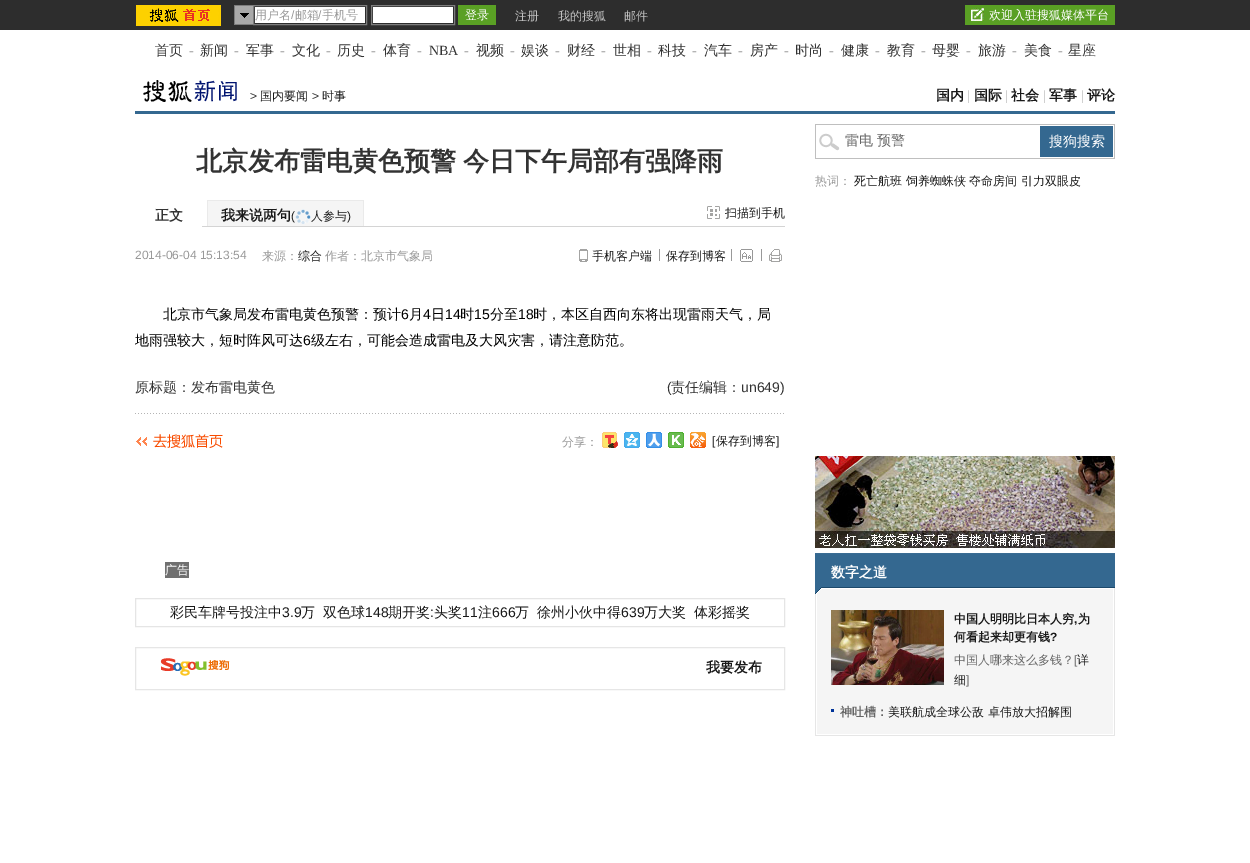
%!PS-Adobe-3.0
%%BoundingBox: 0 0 1250 863
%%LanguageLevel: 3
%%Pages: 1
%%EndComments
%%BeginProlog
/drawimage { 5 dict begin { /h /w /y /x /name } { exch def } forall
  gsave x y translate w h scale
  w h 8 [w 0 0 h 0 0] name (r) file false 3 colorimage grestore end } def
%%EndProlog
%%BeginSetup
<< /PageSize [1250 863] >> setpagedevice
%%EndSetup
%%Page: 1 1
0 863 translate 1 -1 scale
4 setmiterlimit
1 setgray
0 0 1250 863 rectfill
0.176 setgray
0 0 1250 30 rectfill
(images/1.raw) 136 5 85 21 drawimage
0.663 setgray
235 6 18 18 rectfill
(images/2.raw) 240 13 9 5 drawimage
0.49 setgray
234 5 19 1 rectfill
234 24 19 1 rectfill
234 5 1 20 rectfill
253.5 5.5 113 19 rectstroke
1 setgray
255 7 110 16 rectfill
0.49 setgray
371.5 5.5 83 19 rectstroke
1 setgray
373 7 80 16 rectfill
0.353 0.627 0.141 setrgbcolor
458 5 38 20 rectfill
965 5 150 20 rectfill
(images/3.raw) 971 8 13 13 drawimage
0.204 0.408 0.565 setrgbcolor
135 111 980 3 rectfill
(images/4.raw) 143 80 94 22 drawimage
(images/5.raw) 815 594 300 142 drawimage
0.831 setgray
202 226 583 1 rectfill
0.961 setgray
208 201 155 25 rectfill
0.918 setgray
207 200 157 1 rectfill
363 200 1 26 rectfill
207 200 1 26 rectfill
(images/6.raw) 295 209 16 15 drawimage
(images/7.raw) 707 206 13 13 drawimage
(images/8.raw) 579 249 9 13 drawimage
0.6 setgray
659 249 1 12 rectfill
731 249 1 12 rectfill
(images/9.raw) 740 249 13 13 drawimage
761 249 1 12 rectfill
(images/10.raw) 769 249 13 13 drawimage
(images/11.raw) 135 413 649 1 drawimage
(images/12.raw) 136 434 87 14 drawimage
(images/13.raw) 602 432 16 16 drawimage
(images/14.raw) 624 432 16 16 drawimage
(images/15.raw) 646 432 16 16 drawimage
(images/16.raw) 668 432 16 16 drawimage
(images/17.raw) 690 432 16 16 drawimage
0.439 setgray
165 562 24 16 rectfill
0.898 setgray
135.5 598.5 649 28 rectstroke
0.902 setgray
135.5 647.5 649 42 rectstroke
(images/18.raw) 160 658 70 18 drawimage
(images/19.raw) 815 124 300 35 drawimage
0.204 0.408 0.565 setrgbcolor
1040 126 73 31 rectfill
(images/20.raw) 815 456 300 92 drawimage
(images/21.raw) 815 553 300 41 drawimage
(images/22.raw) 831 610 113 75 drawimage
0 0.2 0.6 setrgbcolor
831 709 3 3 rectfill
(images/23.raw) 816 734 298 2 drawimage
/WenQuanYiZenHei-Medium [12 0 0 -12 0 0] selectfont
0.6 setgray
255 19 moveto (用户名 邮箱) show
/LiberationSans-Regular [12 0 0 -12 0 0] selectfont
291 19 moveto (/) show
318 19 moveto (/) show
/WenQuanYiZenHei-Medium [12 0 0 -12 0 0] selectfont
322 19 moveto (手机号) show
1 setgray
465 19 moveto (登录) show
0.749 setgray
515 20 moveto (注册) show
558 20 moveto (我的搜狐) show
624 20 moveto (邮件) show
1 setgray
989 19 moveto (欢迎入驻搜狐媒体平台) show
/WenQuanYiZenHei-Medium [14 0 0 -14 0 0] selectfont
0.2 setgray
155 55 moveto (首页) show
/LiberationSerif-Regular [14 0 0 -14 0 0] selectfont
0.6 setgray
189 55 moveto (-) show
/WenQuanYiZenHei-Medium [14 0 0 -14 0 0] selectfont
0.2 setgray
200 55 moveto (新闻) show
/LiberationSerif-Regular [14 0 0 -14 0 0] selectfont
0.6 setgray
234 55 moveto (-) show
/WenQuanYiZenHei-Medium [14 0 0 -14 0 0] selectfont
0.2 setgray
246 55 moveto (军事) show
/LiberationSerif-Regular [14 0 0 -14 0 0] selectfont
0.6 setgray
280 55 moveto (-) show
/WenQuanYiZenHei-Medium [14 0 0 -14 0 0] selectfont
0.2 setgray
292 55 moveto (文化) show
/LiberationSerif-Regular [14 0 0 -14 0 0] selectfont
0.6 setgray
326 55 moveto (-) show
/WenQuanYiZenHei-Medium [14 0 0 -14 0 0] selectfont
0.2 setgray
337 55 moveto (历史) show
/LiberationSerif-Regular [14 0 0 -14 0 0] selectfont
0.6 setgray
371 55 moveto (-) show
/WenQuanYiZenHei-Medium [14 0 0 -14 0 0] selectfont
0.2 setgray
383 55 moveto (体育) show
/LiberationSerif-Regular [14 0 0 -14 0 0] selectfont
0.6 setgray
417 55 moveto (-) show
0.2 setgray
429 55 moveto (NBA) show
0.6 setgray
464 55 moveto (-) show
/WenQuanYiZenHei-Medium [14 0 0 -14 0 0] selectfont
0.2 setgray
476 55 moveto (视频) show
/LiberationSerif-Regular [14 0 0 -14 0 0] selectfont
0.6 setgray
510 55 moveto (-) show
/WenQuanYiZenHei-Medium [14 0 0 -14 0 0] selectfont
0.2 setgray
521 55 moveto (娱谈) show
/LiberationSerif-Regular [14 0 0 -14 0 0] selectfont
0.6 setgray
555 55 moveto (-) show
/WenQuanYiZenHei-Medium [14 0 0 -14 0 0] selectfont
0.2 setgray
567 55 moveto (财经) show
/LiberationSerif-Regular [14 0 0 -14 0 0] selectfont
0.6 setgray
601 55 moveto (-) show
/WenQuanYiZenHei-Medium [14 0 0 -14 0 0] selectfont
0.2 setgray
613 55 moveto (世相) show
/LiberationSerif-Regular [14 0 0 -14 0 0] selectfont
0.6 setgray
647 55 moveto (-) show
/WenQuanYiZenHei-Medium [14 0 0 -14 0 0] selectfont
0.2 setgray
658 55 moveto (科技) show
/LiberationSerif-Regular [14 0 0 -14 0 0] selectfont
0.6 setgray
692 55 moveto (-) show
/WenQuanYiZenHei-Medium [14 0 0 -14 0 0] selectfont
0.2 setgray
704 55 moveto (汽车) show
/LiberationSerif-Regular [14 0 0 -14 0 0] selectfont
0.6 setgray
738 55 moveto (-) show
/WenQuanYiZenHei-Medium [14 0 0 -14 0 0] selectfont
0.2 setgray
750 55 moveto (房产) show
/LiberationSerif-Regular [14 0 0 -14 0 0] selectfont
0.6 setgray
784 55 moveto (-) show
/WenQuanYiZenHei-Medium [14 0 0 -14 0 0] selectfont
0.2 setgray
795 55 moveto (时尚) show
/LiberationSerif-Regular [14 0 0 -14 0 0] selectfont
0.6 setgray
829 55 moveto (-) show
/WenQuanYiZenHei-Medium [14 0 0 -14 0 0] selectfont
0.2 setgray
841 55 moveto (健康) show
/LiberationSerif-Regular [14 0 0 -14 0 0] selectfont
0.6 setgray
875 55 moveto (-) show
/WenQuanYiZenHei-Medium [14 0 0 -14 0 0] selectfont
0.2 setgray
887 55 moveto (教育) show
/LiberationSerif-Regular [14 0 0 -14 0 0] selectfont
0.6 setgray
921 55 moveto (-) show
/WenQuanYiZenHei-Medium [14 0 0 -14 0 0] selectfont
0.2 setgray
932 55 moveto (母婴) show
/LiberationSerif-Regular [14 0 0 -14 0 0] selectfont
0.6 setgray
966 55 moveto (-) show
/WenQuanYiZenHei-Medium [14 0 0 -14 0 0] selectfont
0.2 setgray
978 55 moveto (旅游) show
/LiberationSerif-Regular [14 0 0 -14 0 0] selectfont
0.6 setgray
1012 55 moveto (-) show
/WenQuanYiZenHei-Medium [14 0 0 -14 0 0] selectfont
0.2 setgray
1024 55 moveto (美食) show
/LiberationSerif-Regular [14 0 0 -14 0 0] selectfont
0.6 setgray
1058 55 moveto (-) show
/WenQuanYiZenHei-Medium [14 0 0 -14 0 0] selectfont
0.2 setgray
1068 55 moveto (星座) show
/LiberationSans-Regular [12 0 0 -12 0 0] selectfont
250 100 moveto (>) show
/WenQuanYiZenHei-Medium [12 0 0 -12 0 0] selectfont
0.098 setgray
260 100 moveto (国内要闻) show
/LiberationSans-Regular [12 0 0 -12 0 0] selectfont
0.2 setgray
312 100 moveto (>) show
/WenQuanYiZenHei-Medium [12 0 0 -12 0 0] selectfont
0.098 setgray
322 100 moveto (时事) show
/WenQuanYiZenHei-Bold [14 0 0 -14 0 0] selectfont
936 100 moveto (国内) show
/LiberationSerif-Regular [14 0 0 -14 0 0] selectfont
0.749 setgray
967 100 moveto (|) show
/WenQuanYiZenHei-Bold [14 0 0 -14 0 0] selectfont
0.098 setgray
974 100 moveto (国际) show
/LiberationSerif-Regular [14 0 0 -14 0 0] selectfont
0.749 setgray
1005 100 moveto (|) show
/WenQuanYiZenHei-Bold [14 0 0 -14 0 0] selectfont
0.098 setgray
1011 100 moveto (社会) show
/LiberationSerif-Regular [14 0 0 -14 0 0] selectfont
0.749 setgray
1043 100 moveto (|) show
/WenQuanYiZenHei-Bold [14 0 0 -14 0 0] selectfont
0.098 setgray
1049 100 moveto (军事) show
/LiberationSerif-Regular [14 0 0 -14 0 0] selectfont
0.749 setgray
1081 100 moveto (|) show
/WenQuanYiZenHei-Bold [14 0 0 -14 0 0] selectfont
0.098 setgray
1087 100 moveto (评论) show
/WenQuanYiZenHei-Bold [26 0 0 -26 0 0] selectfont
0.2 setgray
196 170 moveto -1 0 32 (北京发布雷电黄色预警 今日下午局部有强降雨) widthshow
/WenQuanYiZenHei-Bold [14 0 0 -14 0 0] selectfont
155 220 moveto (正文) show
0.098 setgray
221 220 moveto (我来说两句) show
/LiberationSans-Regular [12 0 0 -12 0 0] selectfont
291 220 moveto (\() show
/WenQuanYiZenHei-Medium [12 0 0 -12 0 0] selectfont
311 220 moveto (人参与) show
/LiberationSans-Regular [12 0 0 -12 0 0] selectfont
347 220 moveto (\)) show
/WenQuanYiZenHei-Medium [12 0 0 -12 0 0] selectfont
725 217 moveto (扫描到手机) show
/LiberationSans-Regular [12 0 0 -12 0 0] selectfont
0.6 setgray
135 259 moveto (2014-06-04 15:13:54) show
/WenQuanYiZenHei-Medium [12 0 0 -12 0 0] selectfont
262 260 moveto (来源：) show
0.098 setgray
298 260 moveto (综合) show
0.6 setgray
325 260 moveto (作者：北京市气象局) show
0.098 setgray
592 260 moveto (手机客户端) show
666 260 moveto (保存到博客) show
/WenQuanYiZenHei-Medium [14 0 0 -14 0 0] selectfont
0 setgray
163 319 moveto (北京市气象局发布雷电黄色预警：预计) show
/LiberationSans-Regular [14 0 0 -14 0 0] selectfont
401 319 moveto (6) show
/WenQuanYiZenHei-Medium [14 0 0 -14 0 0] selectfont
409 319 moveto (月) show
/LiberationSans-Regular [14 0 0 -14 0 0] selectfont
423 319 moveto (4) show
/WenQuanYiZenHei-Medium [14 0 0 -14 0 0] selectfont
431 319 moveto (日) show
/LiberationSans-Regular [14 0 0 -14 0 0] selectfont
445 319 moveto (14) show
/WenQuanYiZenHei-Medium [14 0 0 -14 0 0] selectfont
460 319 moveto (时) show
/LiberationSans-Regular [14 0 0 -14 0 0] selectfont
474 319 moveto (15) show
/WenQuanYiZenHei-Medium [14 0 0 -14 0 0] selectfont
490 319 moveto (分至) show
/LiberationSans-Regular [14 0 0 -14 0 0] selectfont
518 319 moveto (18) show
/WenQuanYiZenHei-Medium [14 0 0 -14 0 0] selectfont
533 319 moveto (时，本区自西向东将出现雷雨天气，局) show
135 345 moveto (地雨强较大，短时阵风可达) show
/LiberationSans-Regular [14 0 0 -14 0 0] selectfont
303 345 moveto (6) show
/WenQuanYiZenHei-Medium [14 0 0 -14 0 0] selectfont
311 345 moveto (级左右，可能会造成雷电及大风灾害，请注意防范。) show
0.2 setgray
135 392 moveto (原标题：发布雷电黄色) show
/LiberationSans-Regular [14 0 0 -14 0 0] selectfont
667 392 moveto (\() show
/WenQuanYiZenHei-Medium [14 0 0 -14 0 0] selectfont
671 392 moveto (责任编辑：) show
/LiberationSans-Regular [14 0 0 -14 0 0] selectfont
741 392 moveto (un649\)) show
/WenQuanYiZenHei-Medium [12 0 0 -12 0 0] selectfont
0.6 setgray
562 446 moveto (分享：) show
/LiberationSans-Regular [12 0 0 -12 0 0] selectfont
0.098 setgray
712 445 moveto ([) show
/WenQuanYiZenHei-Medium [12 0 0 -12 0 0] selectfont
716 445 moveto (保存到博客) show
/LiberationSans-Regular [12 0 0 -12 0 0] selectfont
776 445 moveto (]) show
/WenQuanYiZenHei-Medium [12 0 0 -12 0 0] selectfont
1 setgray
165 574 moveto (广告) show
/WenQuanYiZenHei-Medium [14 0 0 -14 0 0] selectfont
0.098 setgray
170 617 moveto (彩民车牌号投注中) show
/LiberationSans-Regular [14 0 0 -14 0 0] selectfont
282 617 moveto (3.9) show
/WenQuanYiZenHei-Medium [14 0 0 -14 0 0] selectfont
301 617 moveto (万) show
323 617 moveto (双色球) show
/LiberationSans-Regular [14 0 0 -14 0 0] selectfont
365 617 moveto (148) show
/WenQuanYiZenHei-Medium [14 0 0 -14 0 0] selectfont
388 617 moveto (期开奖) show
/LiberationSans-Regular [14 0 0 -14 0 0] selectfont
430 617 moveto (:) show
/WenQuanYiZenHei-Medium [14 0 0 -14 0 0] selectfont
434 617 moveto (头奖) show
/LiberationSans-Regular [14 0 0 -14 0 0] selectfont
462 617 moveto (11) show
/WenQuanYiZenHei-Medium [14 0 0 -14 0 0] selectfont
478 617 moveto (注) show
/LiberationSans-Regular [14 0 0 -14 0 0] selectfont
492 617 moveto (666) show
/WenQuanYiZenHei-Medium [14 0 0 -14 0 0] selectfont
515 617 moveto (万) show
537 617 moveto (徐州小伙中得) show
/LiberationSans-Regular [14 0 0 -14 0 0] selectfont
621 617 moveto (639) show
/WenQuanYiZenHei-Medium [14 0 0 -14 0 0] selectfont
644 617 moveto (万大奖) show
694 617 moveto (体彩摇奖) show
/WenQuanYiZenHei-Bold [14 0 0 -14 0 0] selectfont
706 672 moveto (我要发布) show
/WenQuanYiZenHei-Medium [14 0 0 -14 0 0] selectfont
0.4 setgray
845 145 moveto (雷电 预警) show
1 setgray
1049 146 moveto (搜狗搜索) show
/WenQuanYiZenHei-Medium [12 0 0 -12 0 0] selectfont
0.6 setgray
815 185 moveto (热词：) show
0.098 setgray
854 185 moveto (死亡航班 饲养蜘蛛侠 夺命房间 引力双眼皮) show
/WenQuanYiZenHei-Bold [14 0 0 -14 0 0] selectfont
1 setgray
831 577 moveto (数字之道) show
/WenQuanYiZenHei-Bold [12 0 0 -12 0 0] selectfont
0.098 setgray
954 623 moveto (中国人明明比日本人穷 为) show
/LiberationSans-Bold [12 0 0 -12 0 0] selectfont
1074 623 moveto (,) show
/WenQuanYiZenHei-Bold [12 0 0 -12 0 0] selectfont
954 641 moveto (何看起来却更有钱) show
/LiberationSans-Bold [12 0 0 -12 0 0] selectfont
1050 641 moveto (?) show
/WenQuanYiZenHei-Medium [12 0 0 -12 0 0] selectfont
0.4 setgray
954 664 moveto (中国人哪来这么多钱？) show
/LiberationSans-Regular [12 0 0 -12 0 0] selectfont
1074 664 moveto ([) show
/WenQuanYiZenHei-Medium [12 0 0 -12 0 0] selectfont
0.098 setgray
1077 664 moveto (详) show
954 684 moveto (细) show
/LiberationSans-Regular [12 0 0 -12 0 0] selectfont
0.4 setgray
966 684 moveto (]) show
/WenQuanYiZenHei-Bold [12 0 0 -12 0 0] selectfont
840 716 moveto (神吐槽：) show
/WenQuanYiZenHei-Medium [12 0 0 -12 0 0] selectfont
0.098 setgray
888 716 moveto (美联航成全球公敌 卓伟放大招解围) show
showpage
%%EOF
